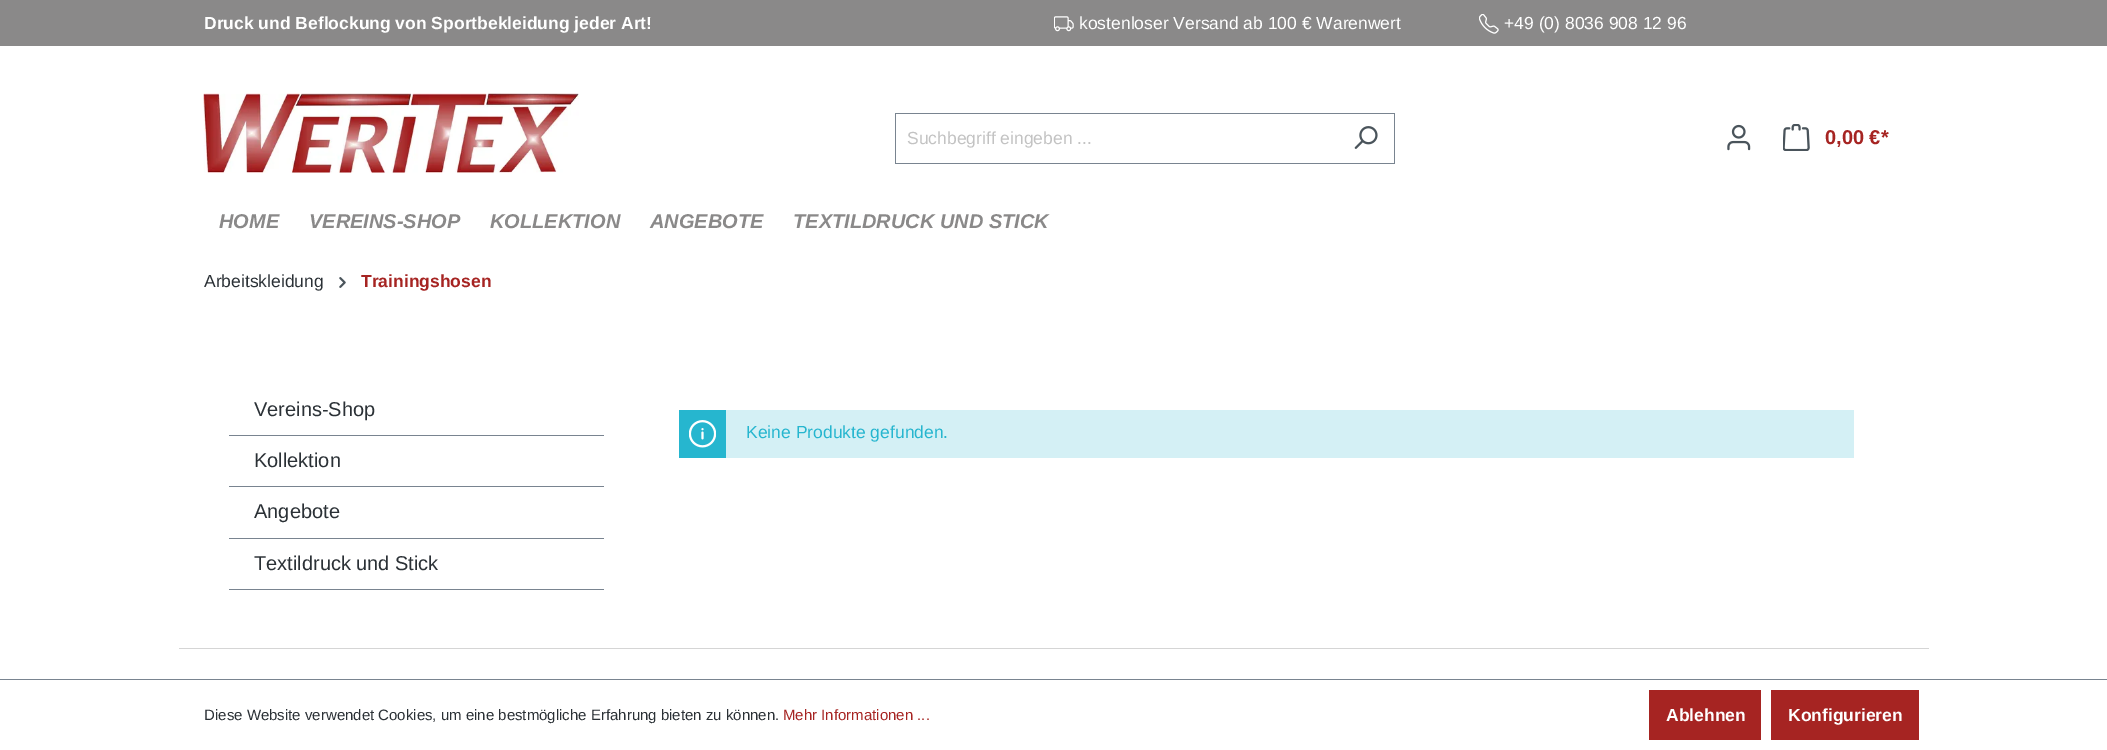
%!PS-Adobe-3.0
%%BoundingBox: 0 0 2107 750
%%LanguageLevel: 3
%%Pages: 1
%%EndComments
%%BeginProlog
/drawimage { 5 dict begin { /h /w /y /x /name } { exch def } forall
  gsave x y translate w h scale
  w h 8 [w 0 0 h 0 0] name (r) file false 3 colorimage grestore end } def
%%EndProlog
%%BeginSetup
<< /PageSize [2107 750] >> setpagedevice
%%EndSetup
%%Page: 1 1
0 750 translate 1 -1 scale
4 setmiterlimit
1 setgray
0 0 2107 750 rectfill
0.541 0.537 0.537 setrgbcolor
0 0 2107 46 rectfill
(images/1.raw) 1054 16 20 16 drawimage
(images/2.raw) 1479 14 20 20 drawimage
(images/3.raw) 203 93 376 80 drawimage
0.475 0.518 0.565 setrgbcolor
895 113 500 1 rectfill
895 163 443 1 rectfill
895 113 1 51 rectfill
1394 113 1 51 rectfill
1336 163 59 1 rectfill
(images/4.raw) 1354 126 24 23 drawimage
(images/5.raw) 1727 124 24 27 drawimage
(images/6.raw) 1783 124 27 27 drawimage
(images/7.raw) 339 277 7 11 drawimage
229 435 375 1 rectfill
229 486 375 1 rectfill
229 538 375 1 rectfill
229 589 375 1 rectfill
0.149 0.714 0.812 setrgbcolor
679 410 47 48 rectfill
(images/8.raw) 689 420 27 28 drawimage
0.831 0.941 0.961 setrgbcolor
726 410 1128 48 rectfill
0.835 setgray
179 648 1750 1 rectfill
0.475 0.518 0.565 setrgbcolor
0 679 2107 1 rectfill
0.651 0.141 0.133 setrgbcolor
1649 690 112 50 rectfill
1771 690 148 50 rectfill
/LiberationSans-Bold [17.5 0 0 -17.5 0 0] selectfont
1 setgray
204 29 moveto (Druck und Beflockung von Sportbekleidung jeder Art!) show
/LiberationSans-Regular [17.5 0 0 -17.5 0 0] selectfont
1079 29 moveto (kostenloser Versand ab 100 € Warenwert) show
1504 29 moveto (+49 \(0\) 8036 908 12 96) show
0.765 setgray
907 144 moveto (Suchbegriff eingeben ...) show
/LiberationSans-Bold [20 0 0 -20 0 0] selectfont
0.651 0.141 0.133 setrgbcolor
1825 144 moveto (0,00 €*) show
/LiberationSans-BoldItalic [20 0 0 -20 0 0] selectfont
0.541 0.537 0.537 setrgbcolor
219 228 moveto (HOME) show
309 228 moveto (VEREINS-SHOP) show
490 228 moveto (KOLLEKTION) show
650 228 moveto (ANGEBOTE) show
793 228 moveto (TEXTILDRUCK UND STICK) show
/LiberationSans-Regular [17.5 0 0 -17.5 0 0] selectfont
0.169 0.192 0.212 setrgbcolor
204 287 moveto (Arbeitskleidung) show
/LiberationSans-Bold [17.5 0 0 -17.5 0 0] selectfont
0.651 0.141 0.133 setrgbcolor
361 287 moveto (Trainingshosen) show
/LiberationSans-Regular [20 0 0 -20 0 0] selectfont
0.169 0.192 0.212 setrgbcolor
254 416 moveto (Vereins-Shop) show
254 467 moveto (Kollektion) show
254 518 moveto (Angebote) show
254 570 moveto (Textildruck und Stick) show
/LiberationSans-Regular [17.5 0 0 -17.5 0 0] selectfont
0.149 0.714 0.812 setrgbcolor
746 438 moveto (Keine Produkte gefunden.) show
/LiberationSans-Regular [15 0 0 -15 0 0] selectfont
0.169 0.192 0.212 setrgbcolor
204 720 moveto (Diese Website verwendet Cookies, um eine bestmögliche Erfahrung bieten zu können.) show
0.651 0.141 0.133 setrgbcolor
783 720 moveto (Mehr Informationen ...) show
/LiberationSans-Bold [17.5 0 0 -17.5 0 0] selectfont
1 setgray
1666 721 moveto (Ablehnen) show
1788 721 moveto (Konfigurieren) show
showpage
%%EOF
